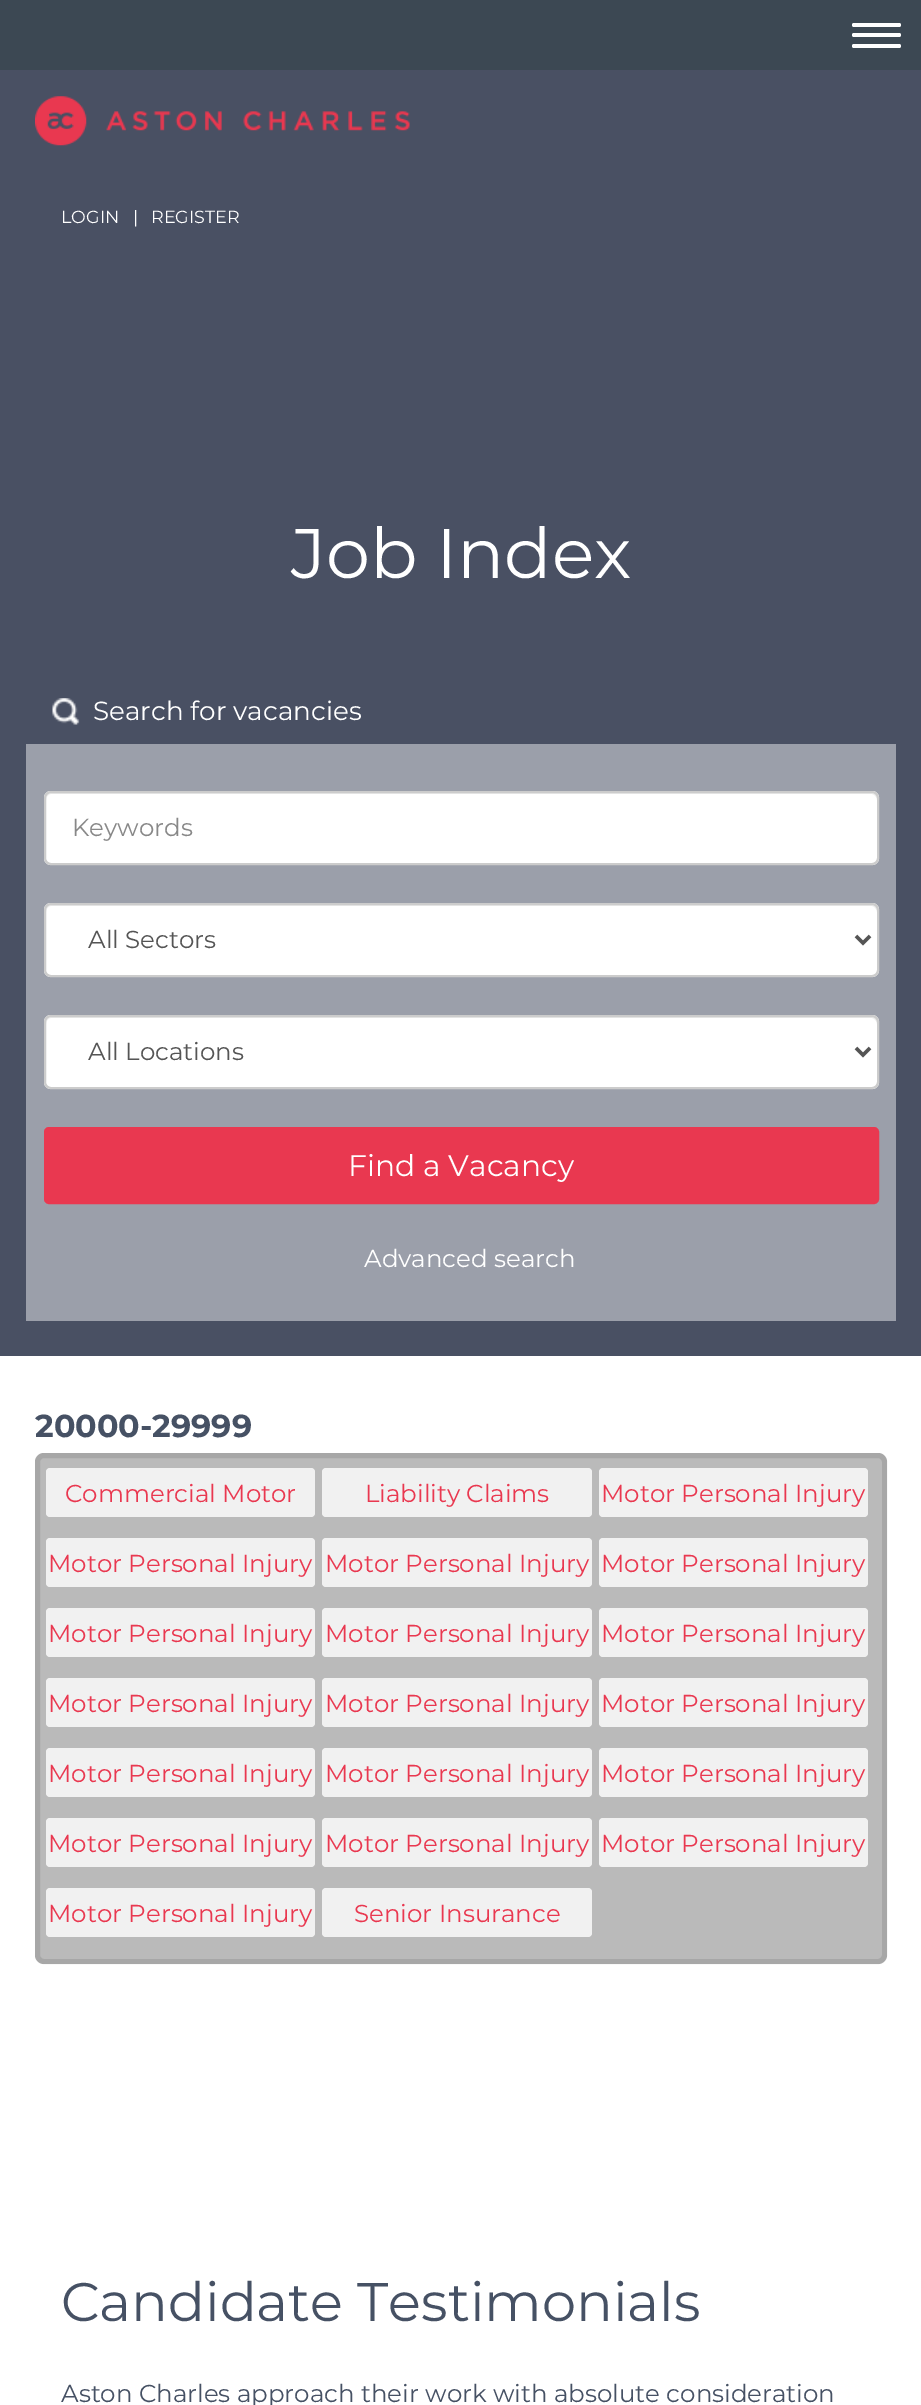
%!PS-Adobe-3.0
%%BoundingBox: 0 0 921 2405
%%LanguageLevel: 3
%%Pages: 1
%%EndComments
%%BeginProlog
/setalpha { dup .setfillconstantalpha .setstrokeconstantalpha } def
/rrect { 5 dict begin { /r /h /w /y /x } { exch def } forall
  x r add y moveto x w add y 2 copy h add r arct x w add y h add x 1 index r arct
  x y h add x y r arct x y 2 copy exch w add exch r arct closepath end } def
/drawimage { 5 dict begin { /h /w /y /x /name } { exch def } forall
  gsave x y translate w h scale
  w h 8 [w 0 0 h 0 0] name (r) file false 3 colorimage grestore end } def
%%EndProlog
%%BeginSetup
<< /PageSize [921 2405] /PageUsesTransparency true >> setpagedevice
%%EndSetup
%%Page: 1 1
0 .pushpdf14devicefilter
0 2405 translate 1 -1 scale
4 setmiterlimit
1 setgray
0 0 921 2405 rectfill
0.286 0.314 0.388 setrgbcolor
0 70 921 1286 rectfill
0.235 0.282 0.325 setrgbcolor
0 0 921 70 rectfill
1 setgray
852 23 49 4 2 rrect fill
852 33 49 4 2 rrect fill
852 44 49 4 2 rrect fill
(images/1.raw) 35 96 375 50 drawimage
(images/2.raw) 52 698 28 27 drawimage
0.608 0.624 0.667 setrgbcolor
26 744 870 577 rectfill
1 setgray
44 791 835 74 7 rrect fill
0.925 setgray
newpath 51 794 moveto 872 794 lineto 874 794 877 797 877 800 curveto 877 798 lineto 877 795 875 793 872 793 curveto 51 793 lineto 48 793 46 795 46 798 curveto 46 800 lineto 46 797 48 794 51 794 curveto closepath fill
0.8 setgray
2 setlinewidth
45 792 833 72 6 rrect stroke
1 setgray
44 903 835 74 7 rrect fill
0.925 setgray
newpath 51 906 moveto 872 906 lineto 874 906 877 909 877 912 curveto 877 910 lineto 877 907 875 905 872 905 curveto 51 905 lineto 48 905 46 907 46 910 curveto 46 912 lineto 46 909 48 906 51 906 curveto closepath fill
0.8 setgray
45 904 833 72 6 rrect stroke
0.333 setgray
3.5 setlinewidth
newpath 856 936 moveto 863 943 lineto 870 936 lineto stroke
1 setgray
44 1015 835 74 7 rrect fill
0.925 setgray
newpath 51 1018 moveto 872 1018 lineto 874 1018 877 1021 877 1024 curveto 877 1022 lineto 877 1019 875 1017 872 1017 curveto 51 1017 lineto 48 1017 46 1019 46 1022 curveto 46 1024 lineto 46 1021 48 1018 51 1018 curveto closepath fill
0.8 setgray
2 setlinewidth
45 1016 833 72 6 rrect stroke
0.333 setgray
3.5 setlinewidth
newpath 856 1048 moveto 863 1055 lineto 870 1048 lineto stroke
0.914 0.22 0.314 setrgbcolor
45 1128 833 75 4 rrect gsave fill grestore
2 setlinewidth
stroke
0.729 setgray
35 1453 852 511 9 rrect fill
0.1 setalpha
0 setgray
5 setlinewidth
37.5 1455.5 847 506 6.5 rrect stroke
1 setalpha
0.945 setgray
46 1468 269 49 4 rrect fill
322 1468 270 49 4 rrect fill
599 1468 269 49 4 rrect fill
46 1538 269 49 4 rrect fill
322 1538 270 49 4 rrect fill
599 1538 269 49 4 rrect fill
46 1608 269 49 4 rrect fill
322 1608 270 49 4 rrect fill
599 1608 269 49 4 rrect fill
46 1678 269 49 4 rrect fill
322 1678 270 49 4 rrect fill
599 1678 269 49 4 rrect fill
46 1748 269 49 4 rrect fill
322 1748 270 49 4 rrect fill
599 1748 269 49 4 rrect fill
46 1818 269 49 4 rrect fill
322 1818 270 49 4 rrect fill
599 1818 269 49 4 rrect fill
46 1888 269 49 4 rrect fill
322 1888 270 49 4 rrect fill
/Montserrat-Regular [17.5 0 0 -17.5 0 0] selectfont
1 setgray
61 223 moveto (LOGIN) show
133 223 moveto (|) show
151 223 moveto (REGISTER) show
/Montserrat-Regular [70 0 0 -70 0 0] selectfont
291 578 moveto (Job Index) show
/Montserrat-Regular [26.25 0 0 -26.25 0 0] selectfont
93 720 moveto (Search for vacancies) show
/Montserrat-Regular [24.5 0 0 -24.5 0 0] selectfont
0.533 setgray
72 836 moveto (Keywords) show
0.333 setgray
88 948 moveto (All Sectors) show
88 1060 moveto (All Locations) show
/Montserrat-Regular [29.75 0 0 -29.75 0 0] selectfont
1 setgray
348 1176 moveto (Find a Vacancy) show
/Montserrat-Regular [24.5 0 0 -24.5 0 0] selectfont
364 1267 moveto (Advanced search) show
/Montserrat-Bold [31.75 0 0 -31.75 0 0] selectfont
0.275 0.318 0.392 setrgbcolor
35 1437 moveto (20000-29999) show
/Montserrat-Regular [24.5 0 0 -24.5 0 0] selectfont
0.914 0.22 0.314 setrgbcolor
65 1502 moveto (Commercial Motor) show
365 1502 moveto (Liability Claims) show
601 1502 moveto (Motor Personal Injury) show
48 1572 moveto (Motor Personal Injury) show
325 1572 moveto (Motor Personal Injury) show
601 1572 moveto (Motor Personal Injury) show
48 1642 moveto (Motor Personal Injury) show
325 1642 moveto (Motor Personal Injury) show
601 1642 moveto (Motor Personal Injury) show
48 1712 moveto (Motor Personal Injury) show
325 1712 moveto (Motor Personal Injury) show
601 1712 moveto (Motor Personal Injury) show
48 1782 moveto (Motor Personal Injury) show
325 1782 moveto (Motor Personal Injury) show
601 1782 moveto (Motor Personal Injury) show
48 1852 moveto (Motor Personal Injury) show
325 1852 moveto (Motor Personal Injury) show
601 1852 moveto (Motor Personal Injury) show
48 1922 moveto (Motor Personal Injury) show
354 1922 moveto (Senior Insurance) show
/Montserrat-Regular [54.25 0 0 -54.25 0 0] selectfont
0.275 0.318 0.392 setrgbcolor
61 2321 moveto (Candidate Testimonials) show
/Montserrat-Regular [24.5 0 0 -24.5 0 0] selectfont
61 2402 moveto (Aston Charles approach their work with absolute consideration) show
.poppdf14devicefilter showpage
%%EOF
